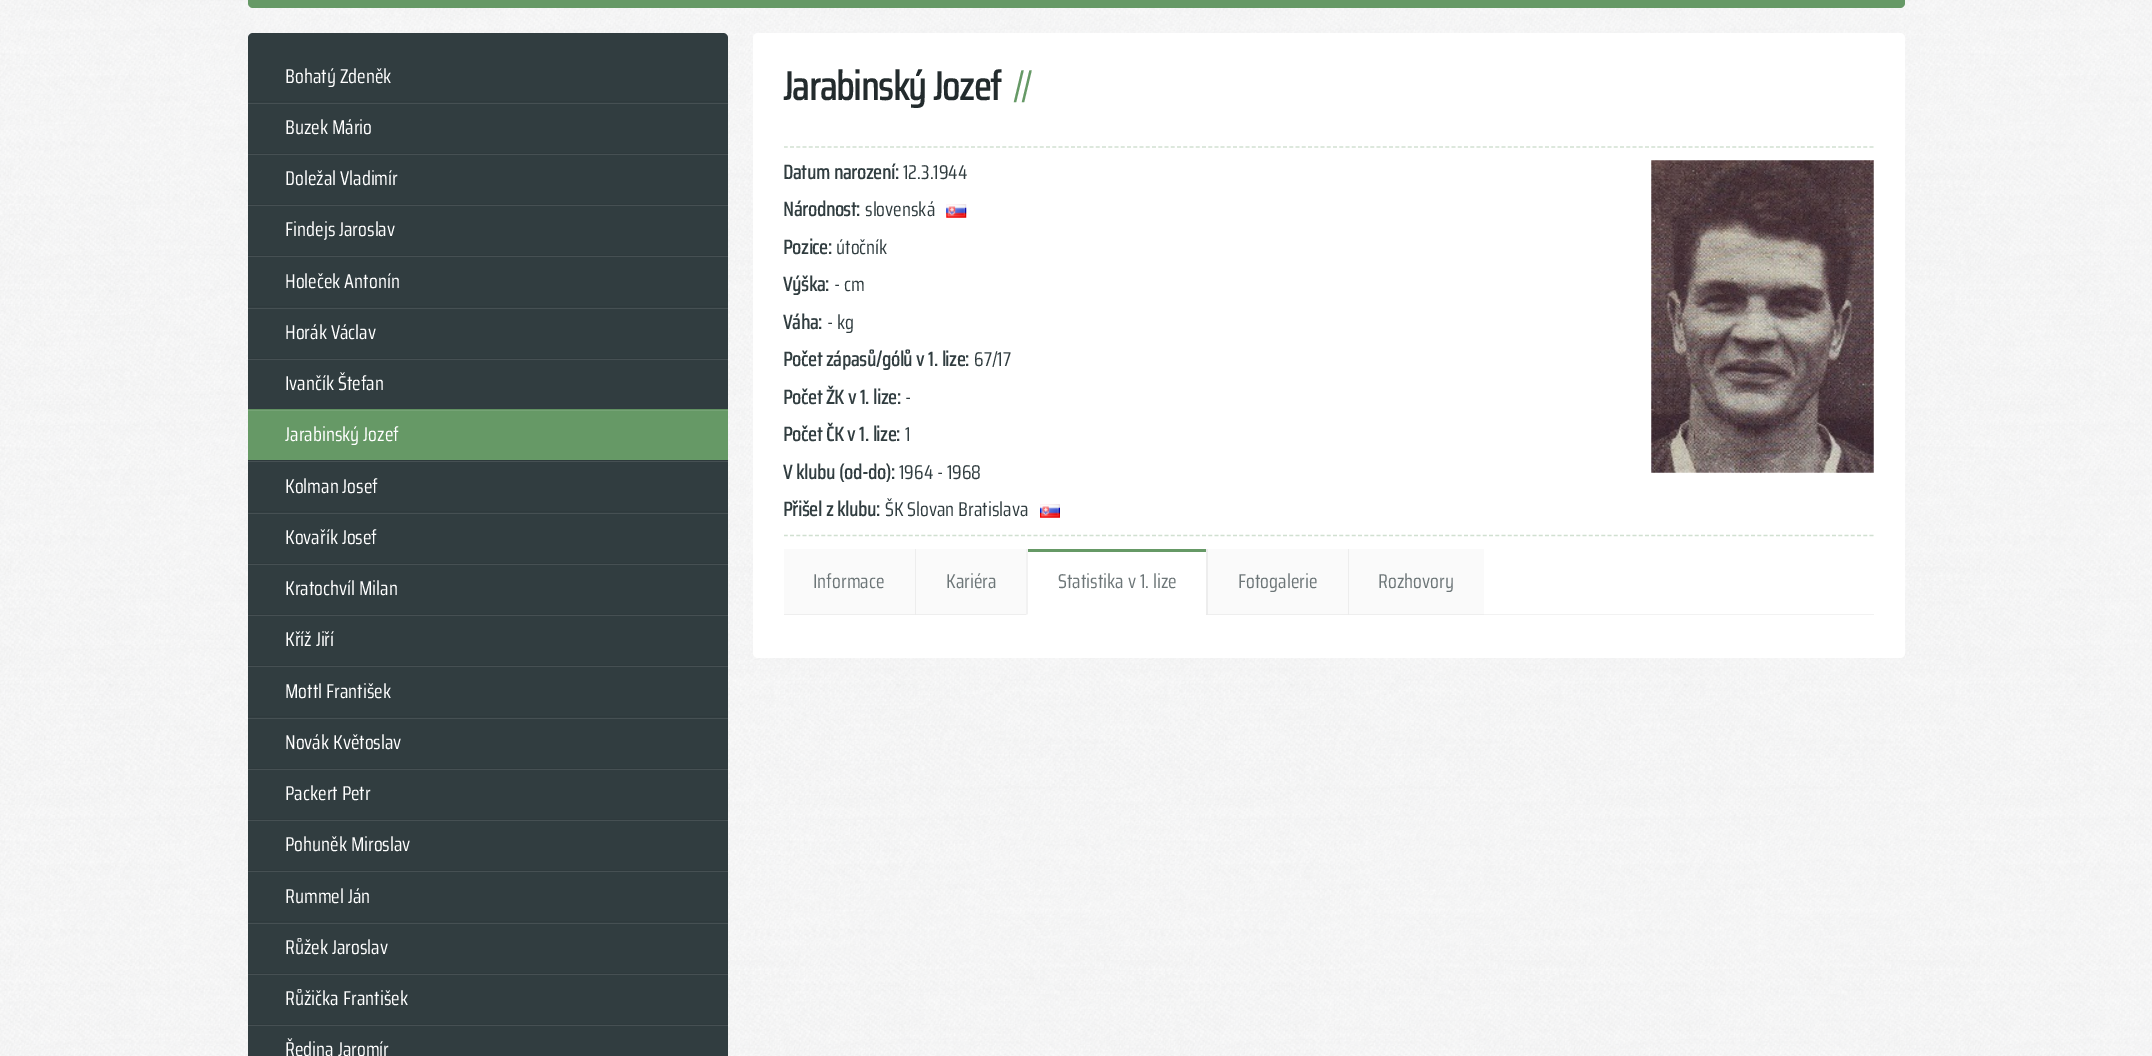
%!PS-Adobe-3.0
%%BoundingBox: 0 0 2152 1056
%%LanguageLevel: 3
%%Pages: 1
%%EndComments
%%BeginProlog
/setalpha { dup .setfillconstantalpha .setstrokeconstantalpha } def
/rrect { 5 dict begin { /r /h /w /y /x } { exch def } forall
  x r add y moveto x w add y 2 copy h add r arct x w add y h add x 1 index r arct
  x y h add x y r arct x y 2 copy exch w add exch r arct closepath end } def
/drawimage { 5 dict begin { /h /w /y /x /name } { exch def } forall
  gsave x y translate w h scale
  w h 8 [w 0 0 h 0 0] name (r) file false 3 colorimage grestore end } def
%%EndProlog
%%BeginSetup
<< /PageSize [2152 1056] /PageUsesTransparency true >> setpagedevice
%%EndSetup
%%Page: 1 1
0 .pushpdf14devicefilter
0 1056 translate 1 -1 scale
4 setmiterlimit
1 setgray
0 0 2152 1056 rectfill
(images/1.raw) 0 0 2152 1056 drawimage
0.4 0.6 0.4 setrgbcolor
248 -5 1657 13 5 rrect fill
0.192 0.239 0.251 setrgbcolor
248 33 480 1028 5 rrect fill
0.275 0.314 0.325 setrgbcolor
248 103 480 1 rectfill
0.184 0.227 0.239 setrgbcolor
248 101 480 1 rectfill
0.275 0.314 0.325 setrgbcolor
248 154 480 1 rectfill
0.184 0.227 0.239 setrgbcolor
248 153 480 1 rectfill
0.275 0.314 0.325 setrgbcolor
248 205 480 1 rectfill
0.184 0.227 0.239 setrgbcolor
248 204 480 1 rectfill
0.275 0.314 0.325 setrgbcolor
248 256 480 1 rectfill
0.184 0.227 0.239 setrgbcolor
248 255 480 1 rectfill
0.275 0.314 0.325 setrgbcolor
248 308 480 1 rectfill
0.184 0.227 0.239 setrgbcolor
248 306 480 1 rectfill
0.275 0.314 0.325 setrgbcolor
248 359 480 1 rectfill
0.184 0.227 0.239 setrgbcolor
248 358 480 1 rectfill
0.4 0.6 0.4 setrgbcolor
248 411 480 49 rectfill
0.459 0.639 0.459 setrgbcolor
248 410 480 1 rectfill
0.38 0.569 0.38 setrgbcolor
248 409 480 1 rectfill
0.275 0.314 0.325 setrgbcolor
248 461 480 1 rectfill
0.184 0.227 0.239 setrgbcolor
248 460 480 1 rectfill
0.275 0.314 0.325 setrgbcolor
248 513 480 1 rectfill
0.184 0.227 0.239 setrgbcolor
248 511 480 1 rectfill
0.275 0.314 0.325 setrgbcolor
248 564 480 1 rectfill
0.184 0.227 0.239 setrgbcolor
248 563 480 1 rectfill
0.275 0.314 0.325 setrgbcolor
248 615 480 1 rectfill
0.184 0.227 0.239 setrgbcolor
248 614 480 1 rectfill
0.275 0.314 0.325 setrgbcolor
248 666 480 1 rectfill
0.184 0.227 0.239 setrgbcolor
248 665 480 1 rectfill
0.275 0.314 0.325 setrgbcolor
248 718 480 1 rectfill
0.184 0.227 0.239 setrgbcolor
248 716 480 1 rectfill
0.275 0.314 0.325 setrgbcolor
248 769 480 1 rectfill
0.184 0.227 0.239 setrgbcolor
248 768 480 1 rectfill
0.275 0.314 0.325 setrgbcolor
248 820 480 1 rectfill
0.184 0.227 0.239 setrgbcolor
248 819 480 1 rectfill
0.275 0.314 0.325 setrgbcolor
248 871 480 1 rectfill
0.184 0.227 0.239 setrgbcolor
248 870 480 1 rectfill
0.275 0.314 0.325 setrgbcolor
248 923 480 1 rectfill
0.184 0.227 0.239 setrgbcolor
248 921 480 1 rectfill
0.275 0.314 0.325 setrgbcolor
248 974 480 1 rectfill
0.184 0.227 0.239 setrgbcolor
248 973 480 1 rectfill
0.275 0.314 0.325 setrgbcolor
248 1025 480 1 rectfill
0.184 0.227 0.239 setrgbcolor
248 1024 480 1 rectfill
1 setgray
753 33 1152 625 5 rrect fill
0.82 0.878 0.82 setrgbcolor
1.2 setlinewidth
[3.75 2.49] 0 setdash
newpath 784 147 moveto 1874 147 lineto stroke
(images/2.raw) 1651 160 223 313 drawimage
(images/3.raw) 946 204 21 14 drawimage
(images/4.raw) 1040 504 20 14 drawimage
newpath 784 535.5 moveto 1874 535.5 lineto stroke
0.98 setgray
784 549 131 65 rectfill
0.933 setgray
784 614 131 1 rectfill
0.98 setgray
915 549 111 66 rectfill
0.933 setgray
newpath 1026 615 moveto 915 615 lineto 916 614 lineto 1026 614 lineto closepath fill
0.05 setalpha
0 setgray
newpath 915 615 moveto 915 549 lineto 916 549 lineto 916 614 lineto closepath fill
1 setalpha
0.4 0.6 0.4 setrgbcolor
1028 549 178 3 rectfill
0.949 setgray
newpath 1026 615 moveto 1026 549 lineto 1028 549 lineto 1028 614 lineto closepath fill
0.98 setgray
1206 549 278 66 rectfill
0.933 setgray
newpath 1348 615 moveto 1206 615 lineto 1208 614 lineto 1348 614 lineto closepath fill
0.05 setalpha
0 setgray
newpath 1206 615 moveto 1206 549 lineto 1208 549 lineto 1208 614 lineto closepath fill
1 setalpha
0.933 setgray
newpath 1484 615 moveto 1348 615 lineto 1349 614 lineto 1484 614 lineto closepath fill
0.05 setalpha
0 setgray
newpath 1348 615 moveto 1348 549 lineto 1349 549 lineto 1349 614 lineto closepath fill
1 setalpha
0.949 setgray
1484 614 390 1 rectfill
/SairaCondensed-Regular [20 0 0 -20 0 0] selectfont
1 setgray
285 83 moveto (Bohatý Zdeněk) show
285 134 moveto (Buzek Mário) show
285 185 moveto (Doležal Vladimír) show
285 236 moveto (Findejs Jaroslav) show
285 288 moveto (Holeček Antonín) show
285 339 moveto (Horák Václav) show
285 390 moveto (Ivančík Štefan) show
285 441 moveto (Jarabinský Jozef) show
285 493 moveto (Kolman Josef) show
285 544 moveto (Kovařík Josef) show
285 595 moveto (Kratochvíl Milan) show
285 646 moveto (Kříž Jiří) show
285 698 moveto (Mottl František) show
285 749 moveto (Novák Květoslav) show
285 800 moveto (Packert Petr) show
285 851 moveto (Pohuněk Miroslav) show
285 903 moveto (Rummel Ján) show
285 954 moveto (Růžek Jaroslav) show
285 1005 moveto (Růžička František) show
285 1056 moveto (Ředina Jaromír) show
/SairaCondensed-Bold [40 0 0 -40 0 0] selectfont
0.137 0.169 0.176 setrgbcolor
783 100 moveto -0.6 0 (Jarabinský Jozef) ashow
/SairaCondensed-Regular [40 0 0 -40 0 0] selectfont
0.4 0.6 0.4 setrgbcolor
1013 100 moveto -4 0 (//) ashow
/SairaCondensed-Bold [20 0 0 -20 0 0] selectfont
0.192 0.239 0.251 setrgbcolor
783 179 moveto (Datum narození:) show
/SairaCondensed-Regular [20 0 0 -20 0 0] selectfont
903 179 moveto (12.3.1944) show
/SairaCondensed-Bold [20 0 0 -20 0 0] selectfont
783 216 moveto (Národnost:) show
/SairaCondensed-Regular [20 0 0 -20 0 0] selectfont
865 216 moveto (slovenská) show
/SairaCondensed-Bold [20 0 0 -20 0 0] selectfont
783 254 moveto (Pozice:) show
/SairaCondensed-Regular [20 0 0 -20 0 0] selectfont
836 254 moveto (útočník) show
/SairaCondensed-Bold [20 0 0 -20 0 0] selectfont
783 291 moveto (Výška:) show
/SairaCondensed-Regular [20 0 0 -20 0 0] selectfont
834 291 moveto (- cm) show
/SairaCondensed-Bold [20 0 0 -20 0 0] selectfont
783 329 moveto (Váha:) show
/SairaCondensed-Regular [20 0 0 -20 0 0] selectfont
827 329 moveto (- kg) show
/SairaCondensed-Bold [20 0 0 -20 0 0] selectfont
783 366 moveto (Počet zápasů/gólů v 1. lize:) show
/SairaCondensed-Regular [20 0 0 -20 0 0] selectfont
974 366 moveto (67/17) show
/SairaCondensed-Bold [20 0 0 -20 0 0] selectfont
783 404 moveto (Počet ŽK v 1. lize:) show
/SairaCondensed-Regular [20 0 0 -20 0 0] selectfont
905 404 moveto (-) show
/SairaCondensed-Bold [20 0 0 -20 0 0] selectfont
783 441 moveto (Počet ČK v 1. lize:) show
/SairaCondensed-Regular [20 0 0 -20 0 0] selectfont
905 441 moveto (1) show
/SairaCondensed-Bold [20 0 0 -20 0 0] selectfont
783 479 moveto (V klubu \(od-do\):) show
/SairaCondensed-Regular [20 0 0 -20 0 0] selectfont
899 479 moveto (1964 - 1968) show
/SairaCondensed-Bold [20 0 0 -20 0 0] selectfont
783 516 moveto (Přišel z klubu:) show
/SairaCondensed-Regular [20 0 0 -20 0 0] selectfont
885 516 moveto (ŠK Slovan Bratislava) show
0.427 0.463 0.471 setrgbcolor
813 588 moveto (Informace) show
946 588 moveto (Kariéra) show
1058 588 moveto (Statistika v 1. lize) show
1238 588 moveto (Fotogalerie) show
1378 588 moveto (Rozhovory) show
.poppdf14devicefilter showpage
%%EOF
